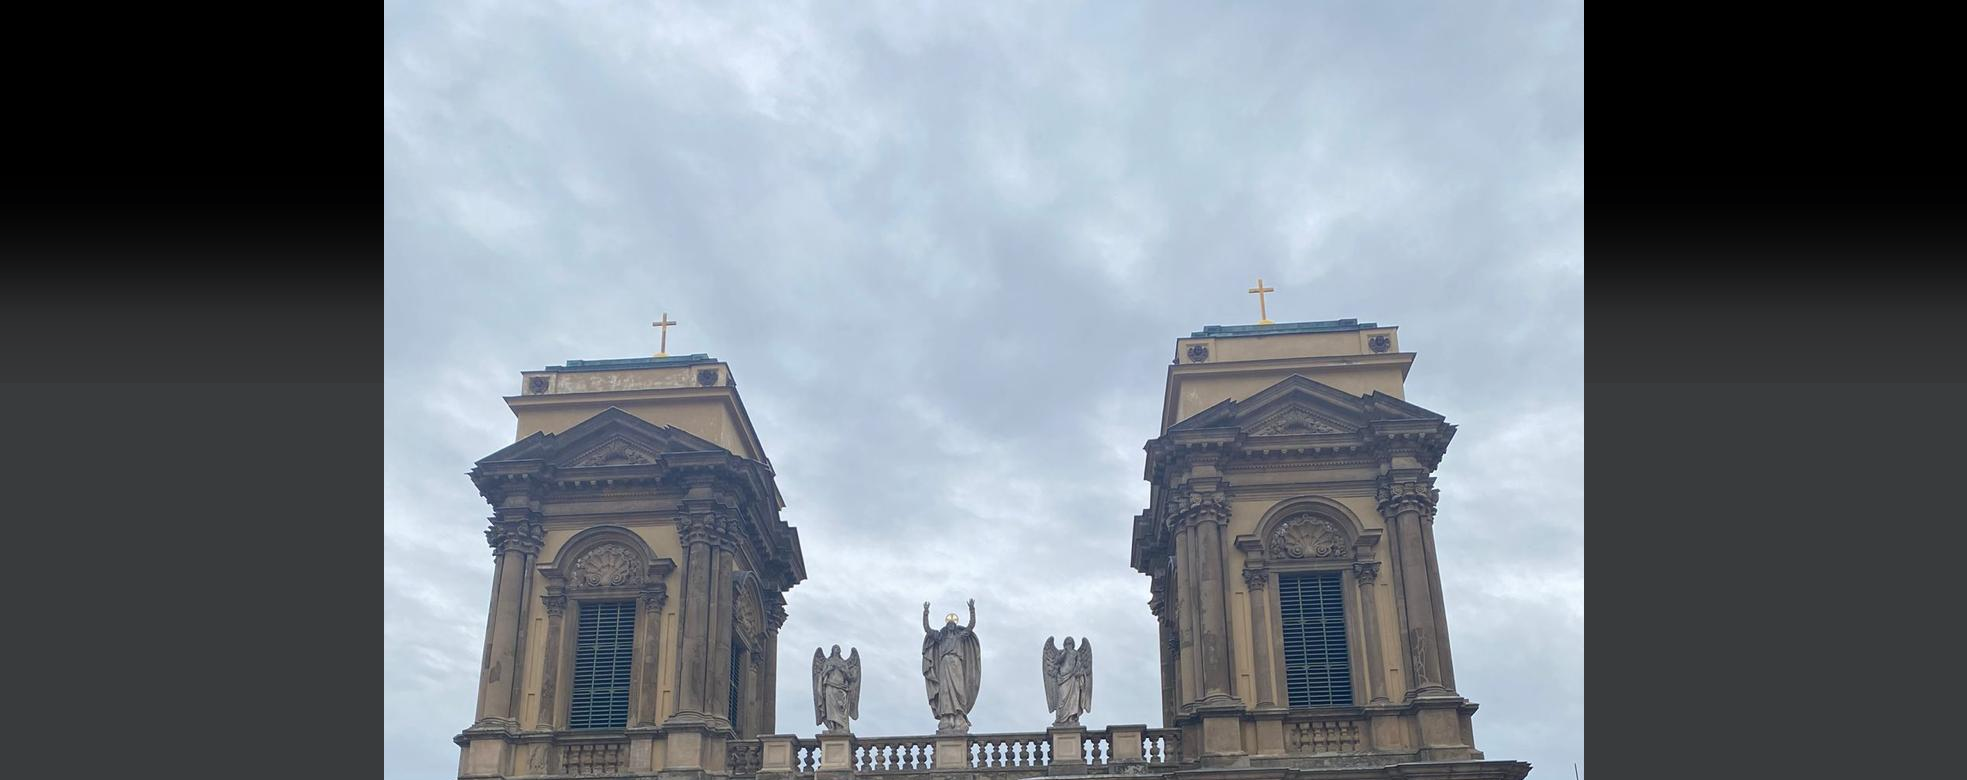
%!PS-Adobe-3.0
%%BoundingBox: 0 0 1967 780
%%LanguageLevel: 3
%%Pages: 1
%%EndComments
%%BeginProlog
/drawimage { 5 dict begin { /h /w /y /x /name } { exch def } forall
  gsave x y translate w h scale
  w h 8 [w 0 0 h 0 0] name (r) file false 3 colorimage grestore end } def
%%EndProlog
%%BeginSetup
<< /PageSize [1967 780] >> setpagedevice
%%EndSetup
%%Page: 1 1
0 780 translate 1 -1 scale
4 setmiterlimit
0.224 0.231 0.239 setrgbcolor
0 0 1967 780 rectfill
(images/1.raw) 0 0 1967 383 drawimage
(images/2.raw) 384 0 1200 780 drawimage
showpage
%%EOF
